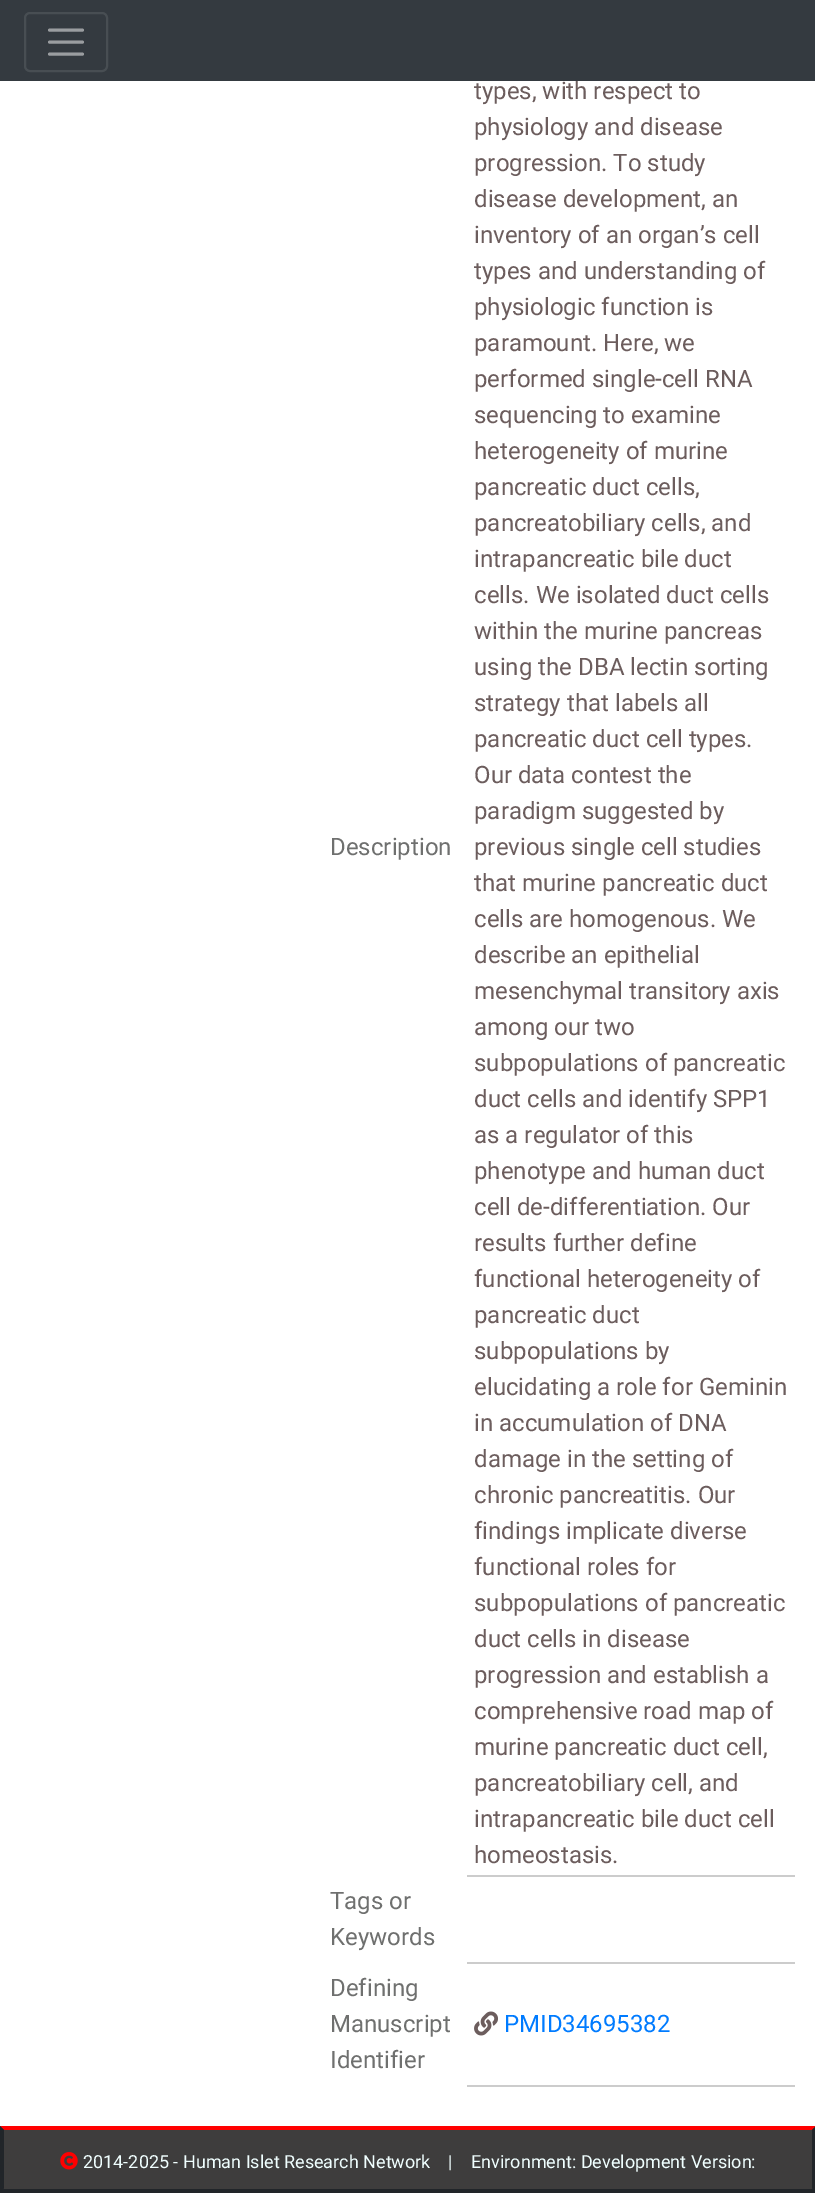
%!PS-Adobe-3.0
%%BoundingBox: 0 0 815 2193
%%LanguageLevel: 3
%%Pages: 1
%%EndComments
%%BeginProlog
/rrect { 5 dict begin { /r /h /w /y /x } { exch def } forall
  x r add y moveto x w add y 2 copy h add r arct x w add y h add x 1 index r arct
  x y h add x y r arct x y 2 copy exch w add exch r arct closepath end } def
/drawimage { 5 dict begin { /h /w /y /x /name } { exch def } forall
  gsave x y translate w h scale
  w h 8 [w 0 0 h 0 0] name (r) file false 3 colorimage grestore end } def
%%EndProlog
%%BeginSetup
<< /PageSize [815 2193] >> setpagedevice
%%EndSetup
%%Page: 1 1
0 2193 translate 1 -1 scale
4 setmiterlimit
1 setgray
0 0 815 2193 rectfill
0.204 0.227 0.251 setrgbcolor
0 0 815 81 rectfill
0.282 0.306 0.325 setrgbcolor
2 setlinewidth
25 13 82 58 5 rrect stroke
0.604 0.616 0.627 setrgbcolor
3 setlinewidth
1 setlinecap
newpath 49.5 30 moveto 82.5 30 lineto 49.5 42 moveto 82.5 42 lineto 49.5 54 moveto 82.5 54 lineto stroke
0.8 setgray
467 1875 328 2 rectfill
467 1962 328 2 rectfill
467 2085 328 2 rectfill
(images/1.raw) 474 2011 24 25 drawimage
0.243 0.239 0.239 setrgbcolor
0 2126 815 63 rectfill
1 0 0 setrgbcolor
newpath 0 2126 moveto 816 2126 lineto 812 2130 lineto 4 2130 lineto closepath fill
0.129 0.145 0.161 setrgbcolor
newpath 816 2126 moveto 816 2193 lineto 812 2188 lineto 812 2130 lineto closepath fill
0 2189 815 4 rectfill
newpath 0 2193 moveto 0 2126 lineto 4 2130 lineto 4 2188 lineto closepath fill
(images/2.raw) 60 2152 18 18 drawimage
/Roboto-Regular [24 0 0 -24 0 0] selectfont
0.435 0.439 0.435 setrgbcolor
330 855 moveto (Description) show
0.424 0.365 0.365 setrgbcolor
474 99 moveto (types, with respect to) show
474 135 moveto (physiology and disease) show
474 171 moveto (progression. To study) show
474 207 moveto (disease development, an) show
474 243 moveto (inventory of an organ’s cell) show
474 279 moveto (types and understanding of) show
474 315 moveto (physiologic function is) show
474 351 moveto (paramount. Here, we) show
474 387 moveto (performed single-cell RNA) show
474 423 moveto (sequencing to examine) show
474 459 moveto (heterogeneity of murine) show
474 495 moveto (pancreatic duct cells,) show
474 531 moveto (pancreatobiliary cells, and) show
474 567 moveto (intrapancreatic bile duct) show
474 603 moveto (cells. We isolated duct cells) show
474 639 moveto (within the murine pancreas) show
474 675 moveto (using the DBA lectin sorting) show
474 711 moveto (strategy that labels all) show
474 747 moveto (pancreatic duct cell types.) show
474 783 moveto (Our data contest the) show
474 819 moveto (paradigm suggested by) show
474 855 moveto (previous single cell studies) show
474 891 moveto (that murine pancreatic duct) show
474 927 moveto (cells are homogenous. We) show
474 963 moveto (describe an epithelial) show
474 999 moveto (mesenchymal transitory axis) show
474 1035 moveto (among our two) show
474 1071 moveto (subpopulations of pancreatic) show
474 1107 moveto (duct cells and identify SPP1) show
474 1143 moveto (as a regulator of this) show
474 1179 moveto (phenotype and human duct) show
474 1215 moveto (cell de-differentiation. Our) show
474 1251 moveto (results further define) show
474 1287 moveto (functional heterogeneity of) show
474 1323 moveto (pancreatic duct) show
474 1359 moveto (subpopulations by) show
474 1395 moveto (elucidating a role for Geminin) show
474 1431 moveto (in accumulation of DNA) show
474 1467 moveto (damage in the setting of) show
474 1503 moveto (chronic pancreatitis. Our) show
474 1539 moveto (findings implicate diverse) show
474 1575 moveto (functional roles for) show
474 1611 moveto (subpopulations of pancreatic) show
474 1647 moveto (duct cells in disease) show
474 1683 moveto (progression and establish a) show
474 1719 moveto (comprehensive road map of) show
474 1755 moveto (murine pancreatic duct cell,) show
474 1791 moveto (pancreatobiliary cell, and) show
474 1827 moveto (intrapancreatic bile duct cell) show
474 1863 moveto (homeostasis.) show
0.435 0.439 0.435 setrgbcolor
330 1909 moveto (Tags or) show
330 1945 moveto (Keywords) show
330 1996 moveto (Defining) show
330 2032 moveto (Manuscript) show
330 2068 moveto (Identifier) show
0 0.482 1 setrgbcolor
504 2032 moveto (PMID34695382) show
/Roboto-Regular [18 0 0 -18 0 0] selectfont
0.941 1 1 setrgbcolor
83 2168 moveto (2014-2025 - Human Islet Research Network    |) show
471 2168 moveto (Environment: Development Version:) show
showpage
%%EOF
